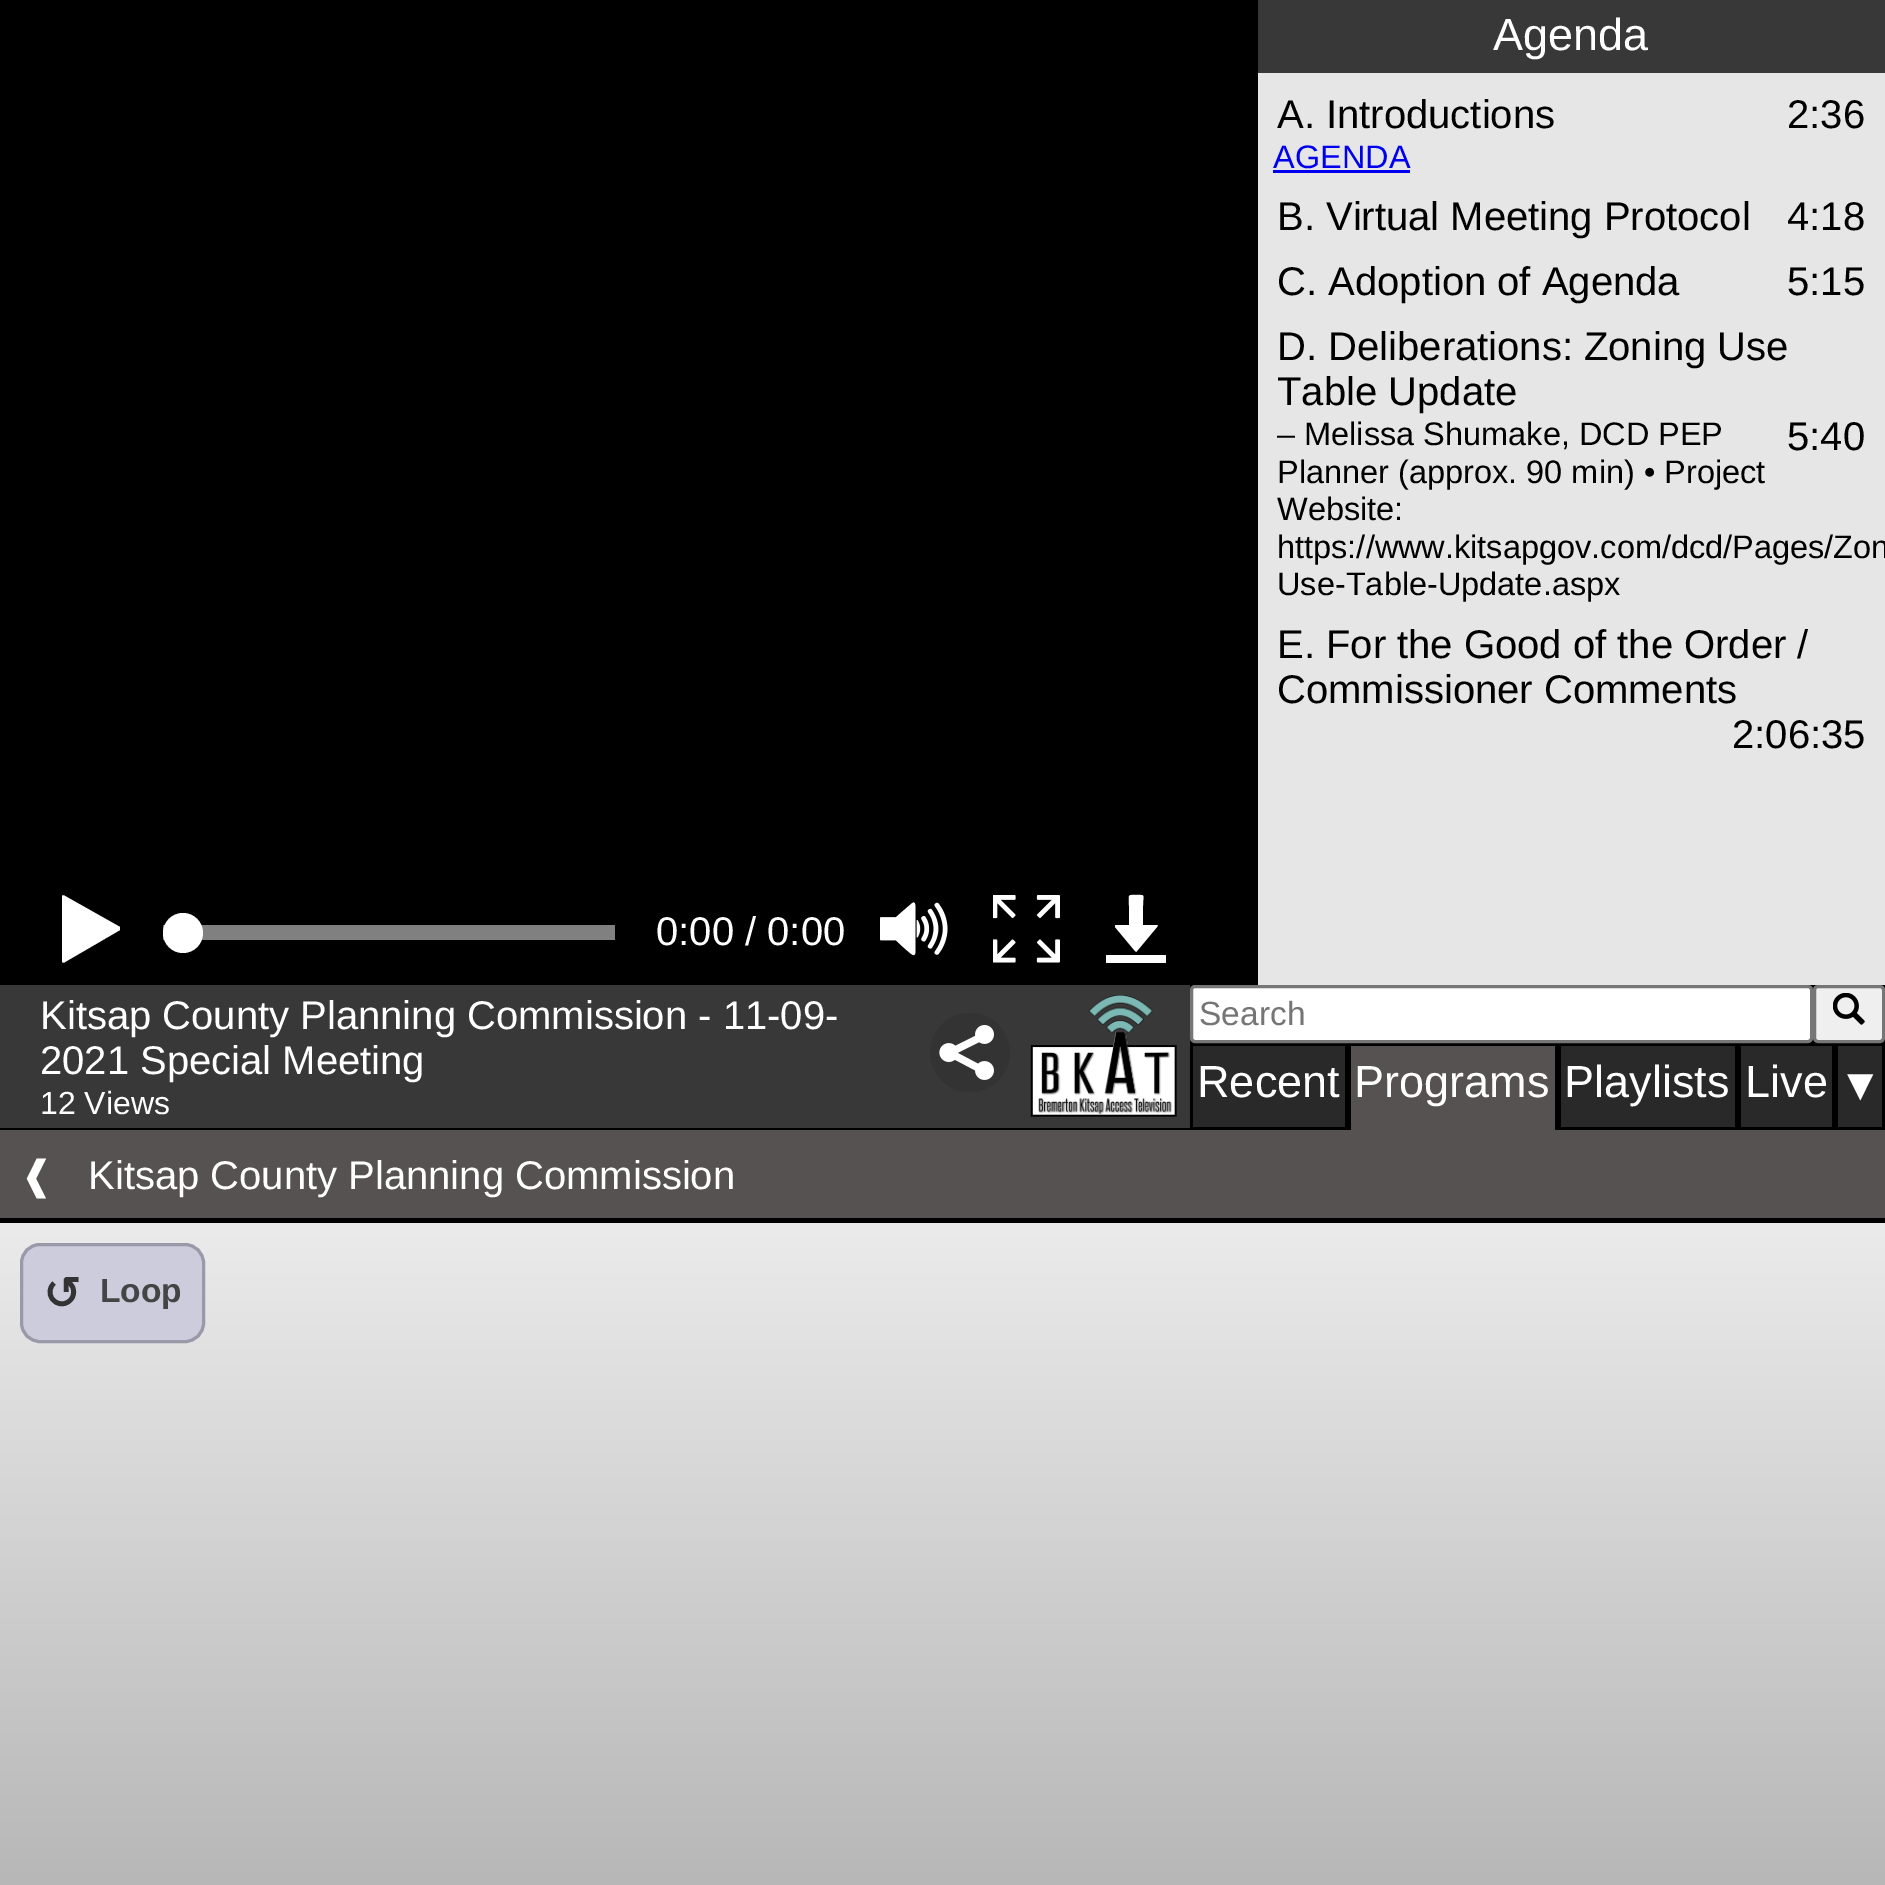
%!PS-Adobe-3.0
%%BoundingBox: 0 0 1885 1885
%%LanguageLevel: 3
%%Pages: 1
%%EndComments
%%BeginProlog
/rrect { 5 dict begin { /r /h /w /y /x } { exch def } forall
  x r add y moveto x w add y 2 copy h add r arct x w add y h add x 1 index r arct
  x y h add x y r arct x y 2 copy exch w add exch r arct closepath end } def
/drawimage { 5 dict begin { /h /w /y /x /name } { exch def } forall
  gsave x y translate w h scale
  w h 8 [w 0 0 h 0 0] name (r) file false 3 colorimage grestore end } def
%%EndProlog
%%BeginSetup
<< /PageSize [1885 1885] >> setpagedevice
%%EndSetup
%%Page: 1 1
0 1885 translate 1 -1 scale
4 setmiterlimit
0 setgray
0 0 1885 1885 rectfill
0.902 setgray
1258 73 627 912 rectfill
0.22 setgray
1258 0 627 73 rectfill
0 0 0.933 setrgbcolor
1273 170 137 3 rectfill
1 setgray
newpath 62 961 moveto 62 896 lineto 62 895 64 895 65 896 curveto 120 927 lineto 120 928 120 929 120 930 curveto 65 962 lineto 64 963 62 963 62 961 curveto closepath fill
0.502 setgray
163 925 452 15 rectfill
1 setgray
newpath 183 933 20 0 360 arc closepath fill
(images/1.raw) 880 902 68 54 drawimage
(images/2.raw) 993 895 67 68 drawimage
newpath 1157 925 moveto 1143 925 lineto 1143 906 lineto 1143 894 1146 895 1136 895 curveto 1127 895 1129 894 1129 906 curveto 1129 925 lineto 1116 925 lineto 1115 925 1115 926 1115 927 curveto 1135 951 lineto 1136 952 1137 952 1137 951 curveto 1157 927 lineto 1158 926 1158 925 1157 925 curveto closepath fill
1106 955 60 8 1 rrect fill
0.22 setgray
0 985 1190 143 rectfill
(images/3.raw) 930 1013 80 79 drawimage
(images/4.raw) 1030 995 147 122 drawimage
1 setgray
1191.5 986.5 620 55 3.5 rrect gsave fill grestore
0.463 setgray
3 setlinewidth
stroke
0.937 setgray
1814.5 986.5 69 55 3.5 rrect gsave fill grestore
0.463 setgray
stroke
(images/5.raw) 1833 993 32 32 drawimage
0.161 setgray
1193 1046 152 81 rectfill
0.337 0.322 0.322 setrgbcolor
1351 1046 204 84 rectfill
0.161 setgray
1561 1046 174 81 rectfill
1741 1046 91 81 rectfill
1838 1046 44 81 rectfill
gsave newpath 0 1223 moveto 1885 1223 lineto 1885 1885 lineto 0 1885 lineto closepath clip newpath
<< /ShadingType 2 /ColorSpace /DeviceRGB /Coords [943 1130 943 1885] /Extend [true true] /Function << /FunctionType 2 /Domain [0 1] /C0 [0.949 0.949 0.949] /C1 [0.718 0.718 0.718] /N 1 >> >> shfill grestore
0.337 0.322 0.322 setrgbcolor
0 1130 1885 88 rectfill
0.8 0.8 0.867 setrgbcolor
21.5 1244.5 182 97 18.5 rrect gsave fill grestore
0.6 0.6 0.667 setrgbcolor
stroke
/LiberationSans-Regular [45 0 0 -45 0 0] selectfont
1 setgray
1493 50 moveto (Agenda) show
/LiberationSans-Regular [40 0 0 -40 0 0] selectfont
0 setgray
1277 128 moveto (A. Introductions) show
1787 128 moveto (2:36) show
/LiberationSans-Regular [32.5 0 0 -32.5 0 0] selectfont
0 0 0.933 setrgbcolor
1273 168 moveto (AGENDA) show
/LiberationSans-Regular [40 0 0 -40 0 0] selectfont
0 setgray
1277 230 moveto (B. Virtual Meeting Protocol) show
1787 230 moveto (4:18) show
1277 295 moveto (C. Adoption of Agenda) show
1787 295 moveto (5:15) show
1277 360 moveto (D. Deliberations: Zoning Use) show
1277 405 moveto (Table Update) show
/LiberationSans-Regular [32.5 0 0 -32.5 0 0] selectfont
1277 445 moveto (– Melissa Shumake, DCD PEP) show
1277 483 moveto (Planner \(approx. 90 min\) • Project) show
1277 520 moveto (Website:) show
1277 558 moveto (https://www.kitsapgov.com/dcd/Pages/Zon) show
1277 595 moveto (Use-Table-Update.aspx) show
/LiberationSans-Regular [40 0 0 -40 0 0] selectfont
1787 450 moveto (5:40) show
1277 658 moveto (E. For the Good of the Order /) show
1277 703 moveto (Commissioner Comments) show
1732 748 moveto (2:06:35) show
1 setgray
656 945 moveto (0:00 / 0:00) show
40 1029 moveto (Kitsap County Planning Commission - 11-09-) show
40 1074 moveto (2021 Special Meeting) show
/LiberationSans-Regular [32 0 0 -32 0 0] selectfont
40 1114 moveto (12 Views) show
/LiberationSans-Regular [33.5 0 0 -33.5 0 0] selectfont
0.459 setgray
1199 1025 moveto (Search) show
/LiberationSans-Regular [45 0 0 -45 0 0] selectfont
1 setgray
1197 1097 moveto (Recent) show
1354 1097 moveto (Programs) show
1564 1097 moveto (Playlists) show
1745 1097 moveto (Live) show
1838 1100 moveto (▼) show
/DejaVuSans-Regular [40 0 0 -40 0 0] selectfont
20 1189 moveto (❰) show
/LiberationSans-Regular [40 0 0 -40 0 0] selectfont
88 1189 moveto (Kitsap County Planning Commission) show
/DejaVuSans-Bold [45 0 0 -45 0 0] selectfont
0.2 setgray
43 1309 moveto (↺) show
/LiberationSans-Bold [33.5 0 0 -33.5 0 0] selectfont
0.267 setgray
100 1302 moveto (Loop) show
showpage
%%EOF
